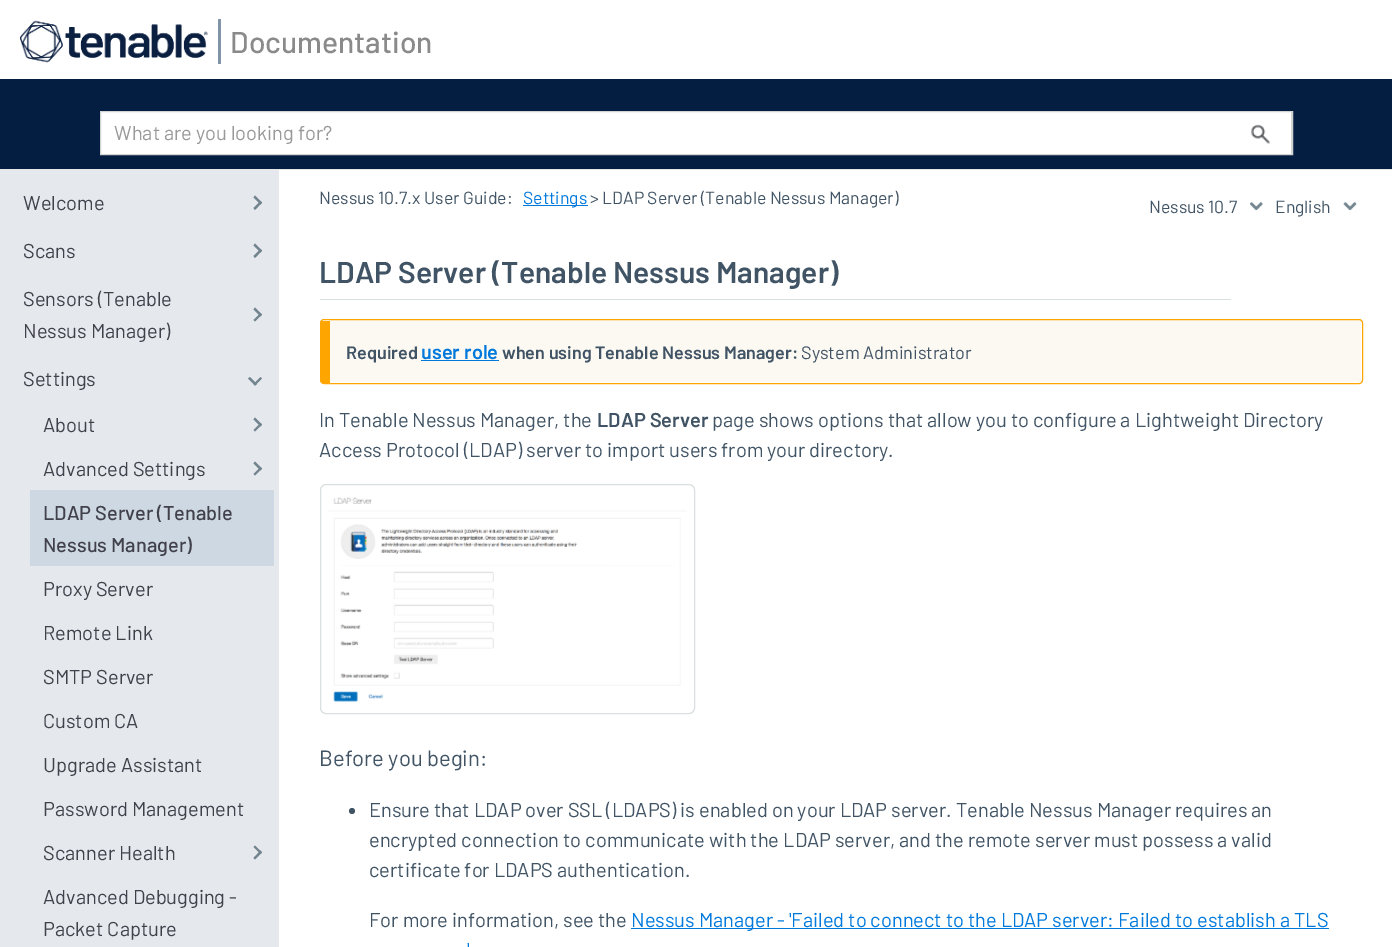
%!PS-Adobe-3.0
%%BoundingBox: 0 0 1392 947
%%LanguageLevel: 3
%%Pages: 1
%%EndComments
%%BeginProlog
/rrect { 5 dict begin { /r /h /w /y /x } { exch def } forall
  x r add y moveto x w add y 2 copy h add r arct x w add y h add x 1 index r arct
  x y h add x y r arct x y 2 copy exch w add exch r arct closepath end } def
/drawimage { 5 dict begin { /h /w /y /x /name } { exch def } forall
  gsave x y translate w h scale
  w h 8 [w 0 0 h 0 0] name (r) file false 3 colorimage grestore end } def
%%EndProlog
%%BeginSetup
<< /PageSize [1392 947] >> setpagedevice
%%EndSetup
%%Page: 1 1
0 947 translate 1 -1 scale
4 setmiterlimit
1 setgray
0 0 1392 947 rectfill
0.902 setgray
0 169 1392 1 rectfill
(images/1.raw) 20 20 188 43 drawimage
0.51 0.58 0.659 setrgbcolor
218 19 3 45 rectfill
0.016 0.118 0.259 setrgbcolor
0 79 1392 90 rectfill
1 setgray
101 112 1190 42 rectfill
0.827 setgray
100.5 111.5 1192 43 rectstroke
(images/2.raw) 1251 124 20 20 drawimage
1291 111 1 44 rectfill
0.898 0.914 0.929 setrgbcolor
0 170 279 777 rectfill
0.447 0.518 0.557 setrgbcolor
newpath 253.5 197.5 moveto 255 195.5 lineto 262 202.5 lineto 260.5 204.5 lineto closepath fill
newpath 253.5 208 moveto 260.5 201 lineto 262 202.5 lineto 255 210 lineto closepath fill
newpath 253.5 245.5 moveto 255 243.5 lineto 262 250.5 lineto 260.5 252.5 lineto closepath fill
newpath 253.5 256 moveto 260.5 249 lineto 262 250.5 lineto 255 258 lineto closepath fill
newpath 253.5 309.5 moveto 255 307.5 lineto 262 314.5 lineto 260.5 316.5 lineto closepath fill
newpath 253.5 320 moveto 260.5 313 lineto 262 314.5 lineto 255 321.5 lineto closepath fill
newpath 260.5 377 moveto 262 378.5 lineto 255 385.5 lineto 253.5 384 lineto closepath fill
newpath 250 377 moveto 257 384 lineto 255 385.5 lineto 248 378.5 lineto closepath fill
newpath 253.5 419.5 moveto 255 417.5 lineto 262 424.5 lineto 260.5 426.5 lineto closepath fill
newpath 253.5 430 moveto 260.5 423 lineto 262 424.5 lineto 255 431.5 lineto closepath fill
newpath 253.5 463.5 moveto 255 461.5 lineto 262 468.5 lineto 260.5 470.5 lineto closepath fill
newpath 253.5 474 moveto 260.5 467 lineto 262 468.5 lineto 255 475.5 lineto closepath fill
0.804 0.847 0.886 setrgbcolor
30 490 244 76 rectfill
0.447 0.518 0.557 setrgbcolor
newpath 253.5 847 moveto 255 845.5 lineto 262 852.5 lineto 260.5 854 lineto closepath fill
newpath 253.5 858 moveto 260.5 850.5 lineto 262 852.5 lineto 255 859.5 lineto closepath fill
0 0.475 0.867 setrgbcolor
523 205 65 1 rectfill
(images/3.raw) 1250 202 13 9 drawimage
(images/4.raw) 1343 202 14 9 drawimage
0.855 0.875 0.882 setrgbcolor
320 299 911 1 rectfill
0.988 0.973 0.949 setrgbcolor
newpath 330 320 moveto 1359 320 lineto 1360 320 1361 321 1361 322 curveto 1361 380 lineto 1361 381 1360 382 1359 382 curveto 330 382 lineto closepath fill
1 0.647 0 setrgbcolor
320.5 319.5 1042 64 3.5 rrect stroke
321 321 9 62 rectfill
0 0.475 0.867 setrgbcolor
421 360 78 1 rectfill
0.855 0.875 0.882 setrgbcolor
320.5 484.5 374 229 5.5 rrect stroke
(images/5.raw) 328 497 359 205 drawimage
0.255 0.329 0.396 setrgbcolor
newpath 352 811 3 0 360 arc closepath fill
0 0.475 0.867 setrgbcolor
631 928 698 1 rectfill
/Barlow-Medium [30 0 0 -30 0 0] selectfont
0.541 setgray
230 53 moveto (Documentation) show
/Barlow-Regular [20 0 0 -20 0 0] selectfont
0.6 setgray
114 140 moveto (What are you looking for?) show
0.255 0.255 0.294 setrgbcolor
23 210 moveto (Welcome) show
23 258 moveto (Scans) show
23 306 moveto (Sensors \(Tenable) show
23 338 moveto (Nessus Manager\)) show
23 386 moveto (Settings) show
43 432 moveto (About) show
43 476 moveto (Advanced Settings) show
/Barlow-Medium [20 0 0 -20 0 0] selectfont
43 520 moveto (LDAP Server \(Tenable) show
43 552 moveto (Nessus Manager\)) show
/Barlow-Regular [20 0 0 -20 0 0] selectfont
43 596 moveto (Proxy Server) show
43 640 moveto (Remote Link) show
43 684 moveto (SMTP Server) show
43 728 moveto (Custom CA) show
43 772 moveto (Upgrade Assistant) show
43 816 moveto (Password Management) show
43 860 moveto (Scanner Health) show
43 904 moveto (Advanced Debugging -) show
43 936 moveto (Packet Capture) show
/Barlow-Regular [17.5 0 0 -17.5 0 0] selectfont
0.255 0.329 0.396 setrgbcolor
319 204 moveto (Nessus 10.7.x User Guide:) show
0 0.475 0.867 setrgbcolor
523 204 moveto (Settings) show
0.255 0.329 0.396 setrgbcolor
590 204 moveto (> LDAP Server \(Tenable Nessus Manager\)) show
1149 213 moveto (Nessus 10.7) show
1275 213 moveto (English) show
/Barlow-SemiBold [30 0 0 -30 0 0] selectfont
319 283 moveto (LDAP Server \(Tenable Nessus Manager\)) show
/Barlow-SemiBold [18 0 0 -18 0 0] selectfont
346 359 moveto (Required) show
/Barlow-SemiBold [20 0 0 -20 0 0] selectfont
0 0.475 0.867 setrgbcolor
421 359 moveto (user role) show
/Barlow-SemiBold [18 0 0 -18 0 0] selectfont
0.255 0.329 0.396 setrgbcolor
502 359 moveto (when using Tenable Nessus Manager:) show
/Barlow-Regular [18 0 0 -18 0 0] selectfont
801 359 moveto (System Administrator) show
/Barlow-Regular [20 0 0 -20 0 0] selectfont
319 427 moveto (In Tenable Nessus Manager, the) show
/Barlow-SemiBold [20 0 0 -20 0 0] selectfont
597 427 moveto (LDAP Server) show
/Barlow-Regular [20 0 0 -20 0 0] selectfont
712 427 moveto (page shows options that allow you to configure a Lightweight Directory) show
319 457 moveto (Access Protocol \(LDAP\) server to import users from your directory.) show
/Barlow-Regular [22 0 0 -22 0 0] selectfont
319 766 moveto (Before you begin:) show
/Barlow-Regular [20 0 0 -20 0 0] selectfont
369 817 moveto (Ensure that LDAP over SSL \(LDAPS\) is enabled on your LDAP server. Tenable Nessus Manager requires an) show
369 847 moveto (encrypted connection to communicate with the LDAP server, and the remote server must possess a valid) show
369 877 moveto (certificate for LDAPS authentication.) show
369 927 moveto (For more information, see the) show
0 0.475 0.867 setrgbcolor
631 927 moveto (Nessus Manager - 'Failed to connect to the LDAP server: Failed to establish a TLS) show
467 957 moveto (') show
showpage
%%EOF
